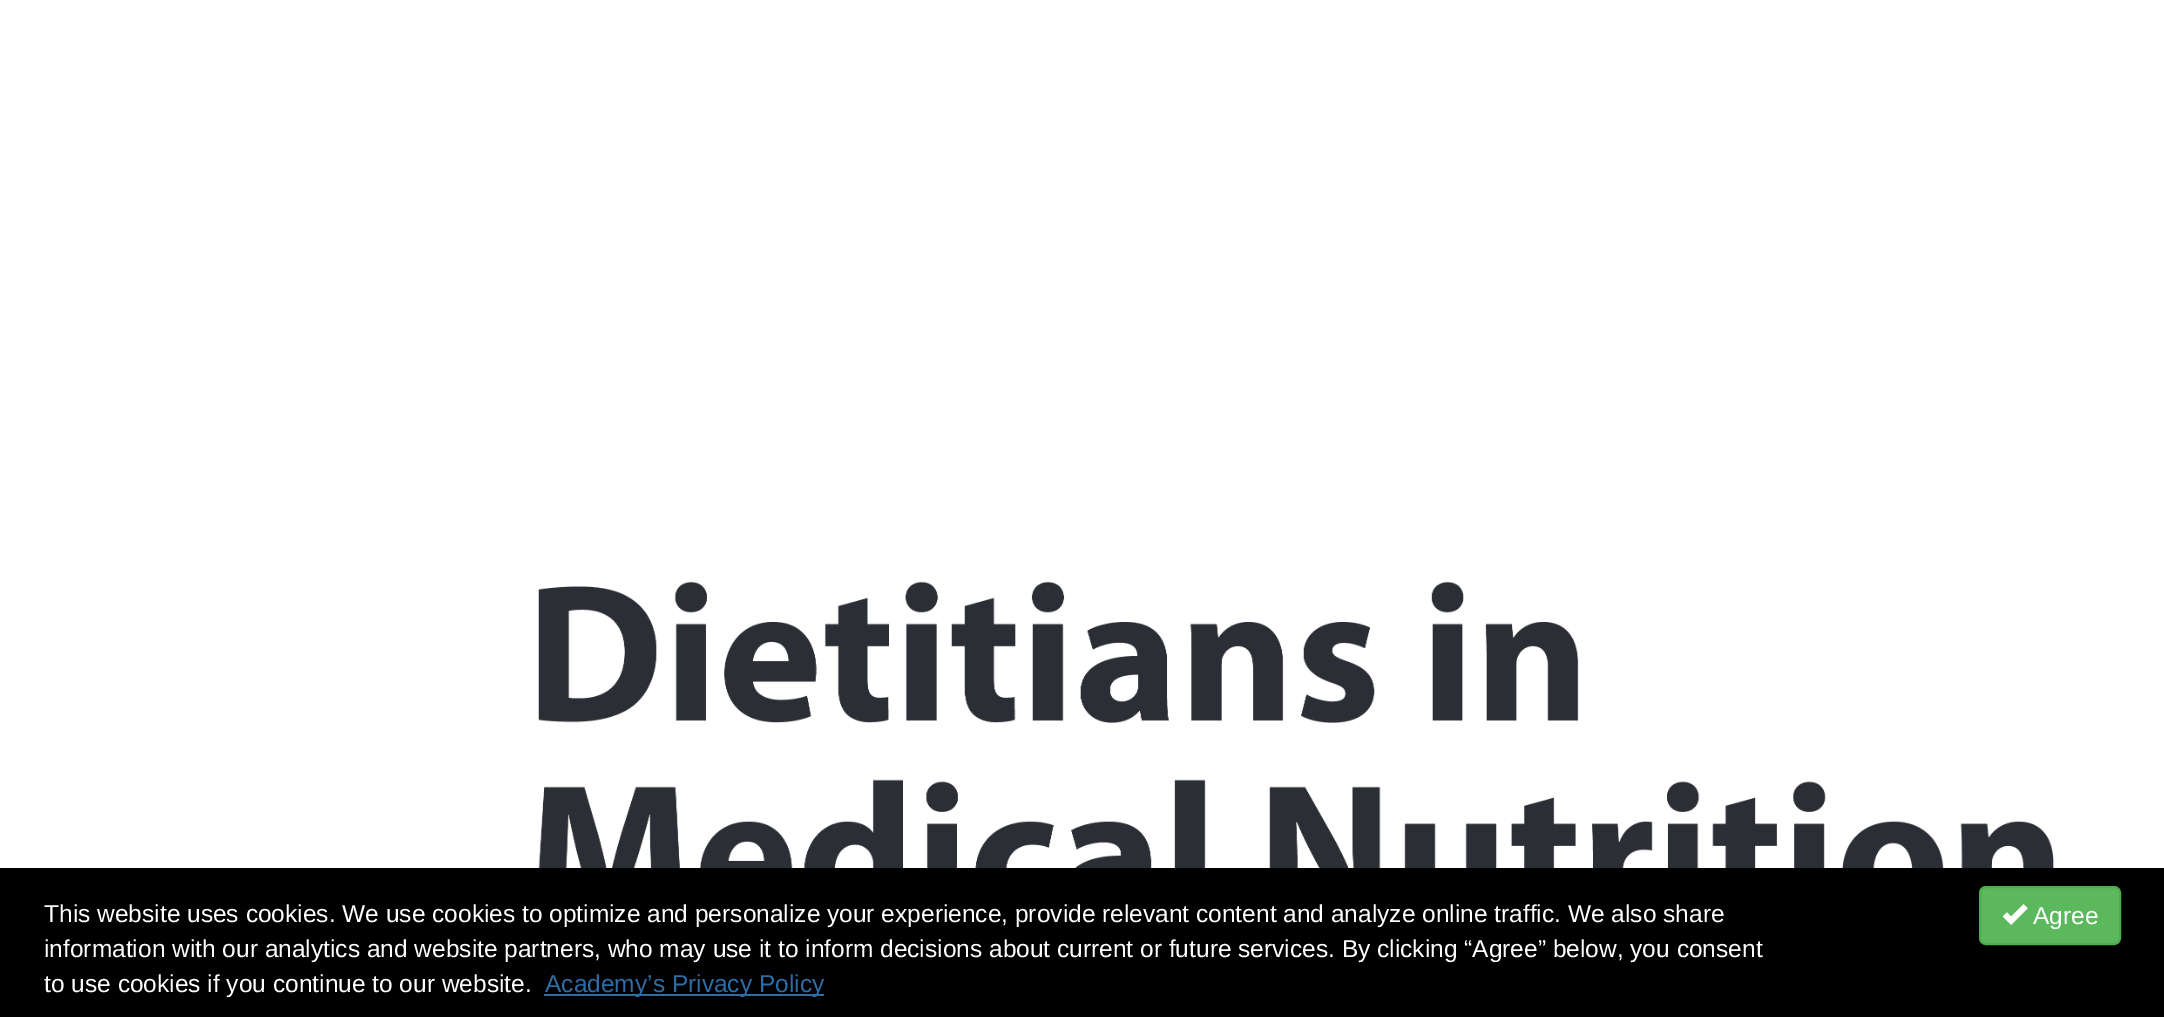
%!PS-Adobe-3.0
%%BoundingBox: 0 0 2164 1017
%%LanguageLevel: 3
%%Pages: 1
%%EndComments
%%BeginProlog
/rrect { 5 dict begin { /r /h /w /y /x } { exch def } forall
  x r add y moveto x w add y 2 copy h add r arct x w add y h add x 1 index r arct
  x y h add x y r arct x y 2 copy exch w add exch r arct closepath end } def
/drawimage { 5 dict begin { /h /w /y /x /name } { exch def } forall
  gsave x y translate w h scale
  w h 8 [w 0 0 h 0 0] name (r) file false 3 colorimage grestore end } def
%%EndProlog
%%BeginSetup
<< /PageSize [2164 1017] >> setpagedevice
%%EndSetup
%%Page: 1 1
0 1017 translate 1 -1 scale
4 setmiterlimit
1 setgray
0 0 2164 1017 rectfill
(images/1.raw) 538 581 1516 287 drawimage
0 setgray
0 868 2164 149 rectfill
0.18 0.427 0.643 setrgbcolor
544 994 280 2 rectfill
0.361 0.722 0.361 setrgbcolor
1980 887 140 57 6 rrect gsave fill grestore
0.298 0.682 0.298 setrgbcolor
2 setlinewidth
stroke
(images/2.raw) 2002 904 26 21 drawimage
/LiberationSans-Regular [24.5 0 0 -24.5 0 0] selectfont
1 setgray
44 922 moveto (This website uses cookies. We use cookies to optimize and personalize your experience, provide relevant content and analyze online traffic. We also share) show
44 957 moveto (information with our analytics and website partners, who may use it to inform decisions about current or future services. By clicking “Agree” below, you consent) show
44 992 moveto (to use cookies if you continue to our website.) show
0.18 0.427 0.643 setrgbcolor
545 992 moveto (Academy’s Privacy Policy) show
1 setgray
2033 924 moveto (Agree) show
showpage
%%EOF
